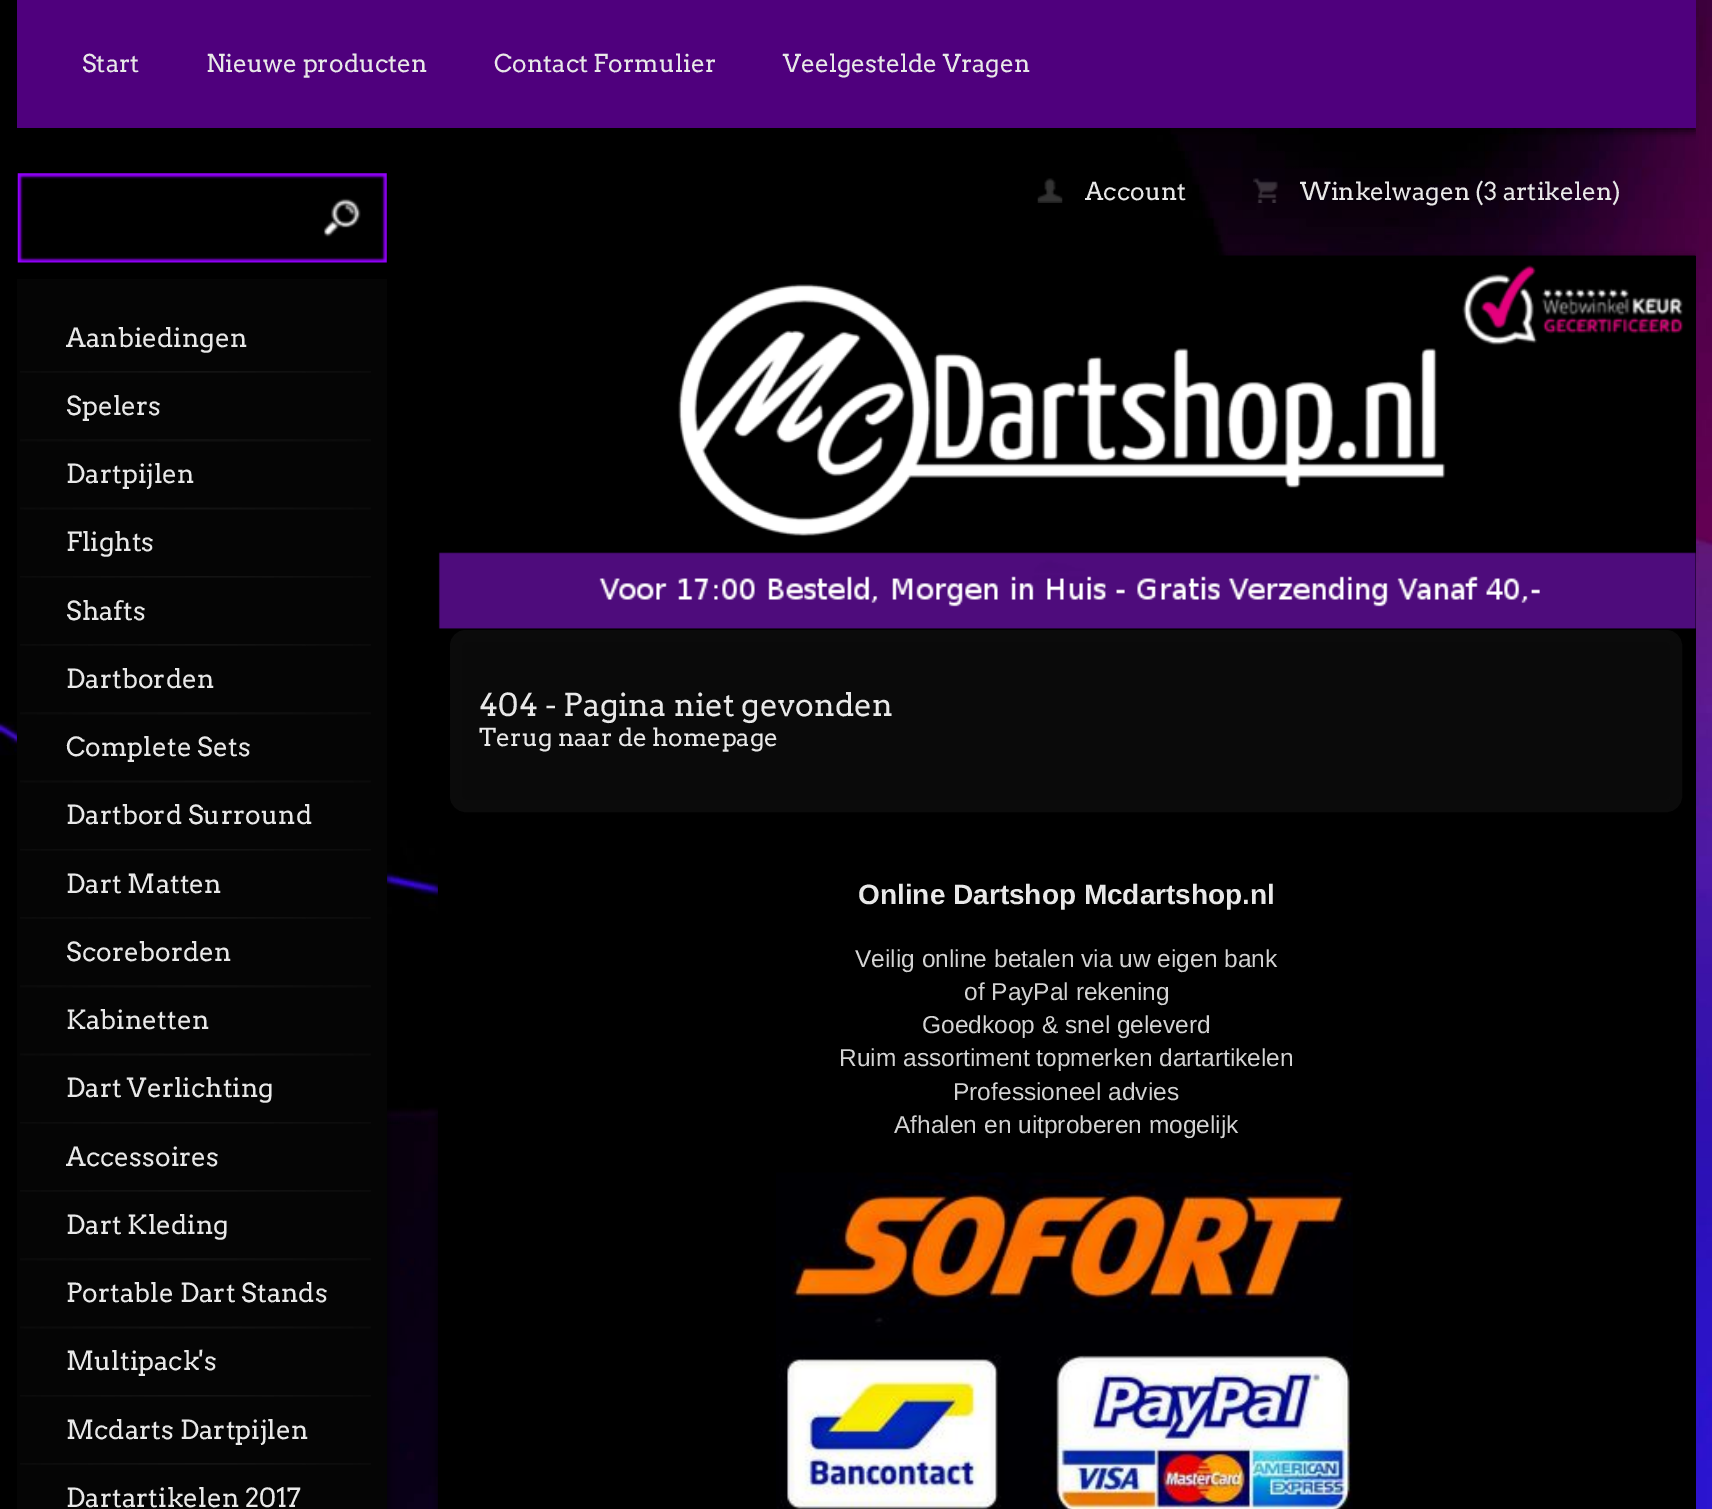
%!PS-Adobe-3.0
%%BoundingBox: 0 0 1712 1509
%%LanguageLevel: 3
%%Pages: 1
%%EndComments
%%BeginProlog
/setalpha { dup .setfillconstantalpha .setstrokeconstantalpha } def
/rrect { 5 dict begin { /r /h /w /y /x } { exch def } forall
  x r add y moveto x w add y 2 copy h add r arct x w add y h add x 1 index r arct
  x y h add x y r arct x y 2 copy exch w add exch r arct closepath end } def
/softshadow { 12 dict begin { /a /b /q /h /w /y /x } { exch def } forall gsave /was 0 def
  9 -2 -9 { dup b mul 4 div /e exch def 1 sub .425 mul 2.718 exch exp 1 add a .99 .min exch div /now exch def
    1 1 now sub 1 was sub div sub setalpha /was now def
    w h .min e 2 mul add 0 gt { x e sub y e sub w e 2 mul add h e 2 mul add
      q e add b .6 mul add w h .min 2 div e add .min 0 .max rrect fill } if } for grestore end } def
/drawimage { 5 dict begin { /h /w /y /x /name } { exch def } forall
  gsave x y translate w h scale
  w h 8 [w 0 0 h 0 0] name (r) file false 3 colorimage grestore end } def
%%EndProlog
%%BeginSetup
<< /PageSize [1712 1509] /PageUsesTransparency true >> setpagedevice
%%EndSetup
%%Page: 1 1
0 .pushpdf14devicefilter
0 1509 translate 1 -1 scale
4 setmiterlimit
1 setgray
0 0 1712 1509 rectfill
(images/1.raw) 0 0 1712 1509 drawimage
gsave
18 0 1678 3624 rectclip
0 setgray
18 4 1678 127 0 4.5 0.75 softshadow
grestore
0.31 0 0.49 setrgbcolor
17 0 1679 128 rectfill
(images/2.raw) 1037 178 26 25 drawimage
(images/3.raw) 1253 178 25 25 drawimage
(images/4.raw) 17 173 370 90 drawimage
gsave
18 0 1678 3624 rectclip
0 setgray
18 282 369 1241 0 4.5 0.75 softshadow
grestore
0.02 setgray
17 279 370 1230 rectfill
(images/5.raw) 20 371 351 2 drawimage
(images/6.raw) 20 439 351 3 drawimage
(images/7.raw) 20 507 351 3 drawimage
(images/8.raw) 20 576 351 2 drawimage
(images/5.raw) 20 644 351 2 drawimage
(images/6.raw) 20 712 351 3 drawimage
(images/7.raw) 20 780 351 3 drawimage
(images/8.raw) 20 849 351 2 drawimage
(images/5.raw) 20 917 351 2 drawimage
(images/6.raw) 20 985 351 3 drawimage
(images/7.raw) 20 1053 351 3 drawimage
(images/8.raw) 20 1122 351 2 drawimage
(images/5.raw) 20 1190 351 2 drawimage
(images/6.raw) 20 1258 351 3 drawimage
(images/7.raw) 20 1326 351 3 drawimage
(images/8.raw) 20 1395 351 2 drawimage
(images/5.raw) 20 1463 351 2 drawimage
gsave
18 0 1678 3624 rectclip
0 setgray
438 259 1258 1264 0 4.5 0.75 softshadow
grestore
0 setgray
438 256 1258 1253 rectfill
(images/9.raw) 438 255 1258 374 drawimage
0.039 setgray
456 636 1220 170 10 rrect gsave fill grestore
0.043 setgray
12 setlinewidth
stroke
(images/10.raw) 776 1172 577 337 drawimage
/Arvo-Regular [24.5 0 0 -24.5 0 0] selectfont
0.91 setgray
82 72 moveto (Start) show
206 72 moveto (Nieuwe producten) show
494 72 moveto (Contact Formulier) show
783 72 moveto (Veelgestelde Vragen) show
1085 200 moveto (Account) show
1300 200 moveto (Winkelwagen \(3 artikelen\)) show
/Arvo-Regular [26.25 0 0 -26.25 0 0] selectfont
66 347 moveto (Aanbiedingen) show
66 415 moveto (Spelers) show
66 483 moveto (Dartpijlen) show
66 551 moveto (Flights) show
66 620 moveto (Shafts) show
66 688 moveto (Dartborden) show
66 756 moveto (Complete Sets) show
66 824 moveto (Dartbord Surround) show
66 893 moveto (Dart Matten) show
66 961 moveto (Scoreborden) show
66 1029 moveto (Kabinetten) show
66 1097 moveto (Dart Verlichting) show
66 1166 moveto (Accessoires) show
66 1234 moveto (Dart Kleding) show
66 1302 moveto (Portable Dart Stands) show
66 1370 moveto (Multipack's) show
66 1439 moveto (Mcdarts Dartpijlen) show
66 1507 moveto (Dartartikelen 2017) show
/Arvo-Regular [31.5 0 0 -31.5 0 0] selectfont
479 716 moveto (404 - Pagina niet gevonden) show
/Arvo-Regular [24.5 0 0 -24.5 0 0] selectfont
479 746 moveto (Terug naar de homepage) show
/LiberationSans-Bold [28 0 0 -28 0 0] selectfont
858 904 moveto (Online Dartshop Mcdartshop.nl) show
/LiberationSans-Regular [24.5 0 0 -24.5 0 0] selectfont
0.827 setgray
855 967 moveto (Veilig online betalen via uw eigen bank) show
964 1000 moveto (of PayPal rekening) show
922 1033 moveto (Goedkoop & snel geleverd) show
839 1066 moveto (Ruim assortiment topmerken dartartikelen) show
953 1100 moveto (Professioneel advies) show
894 1133 moveto (Afhalen en uitproberen mogelijk) show
.poppdf14devicefilter showpage
%%EOF
